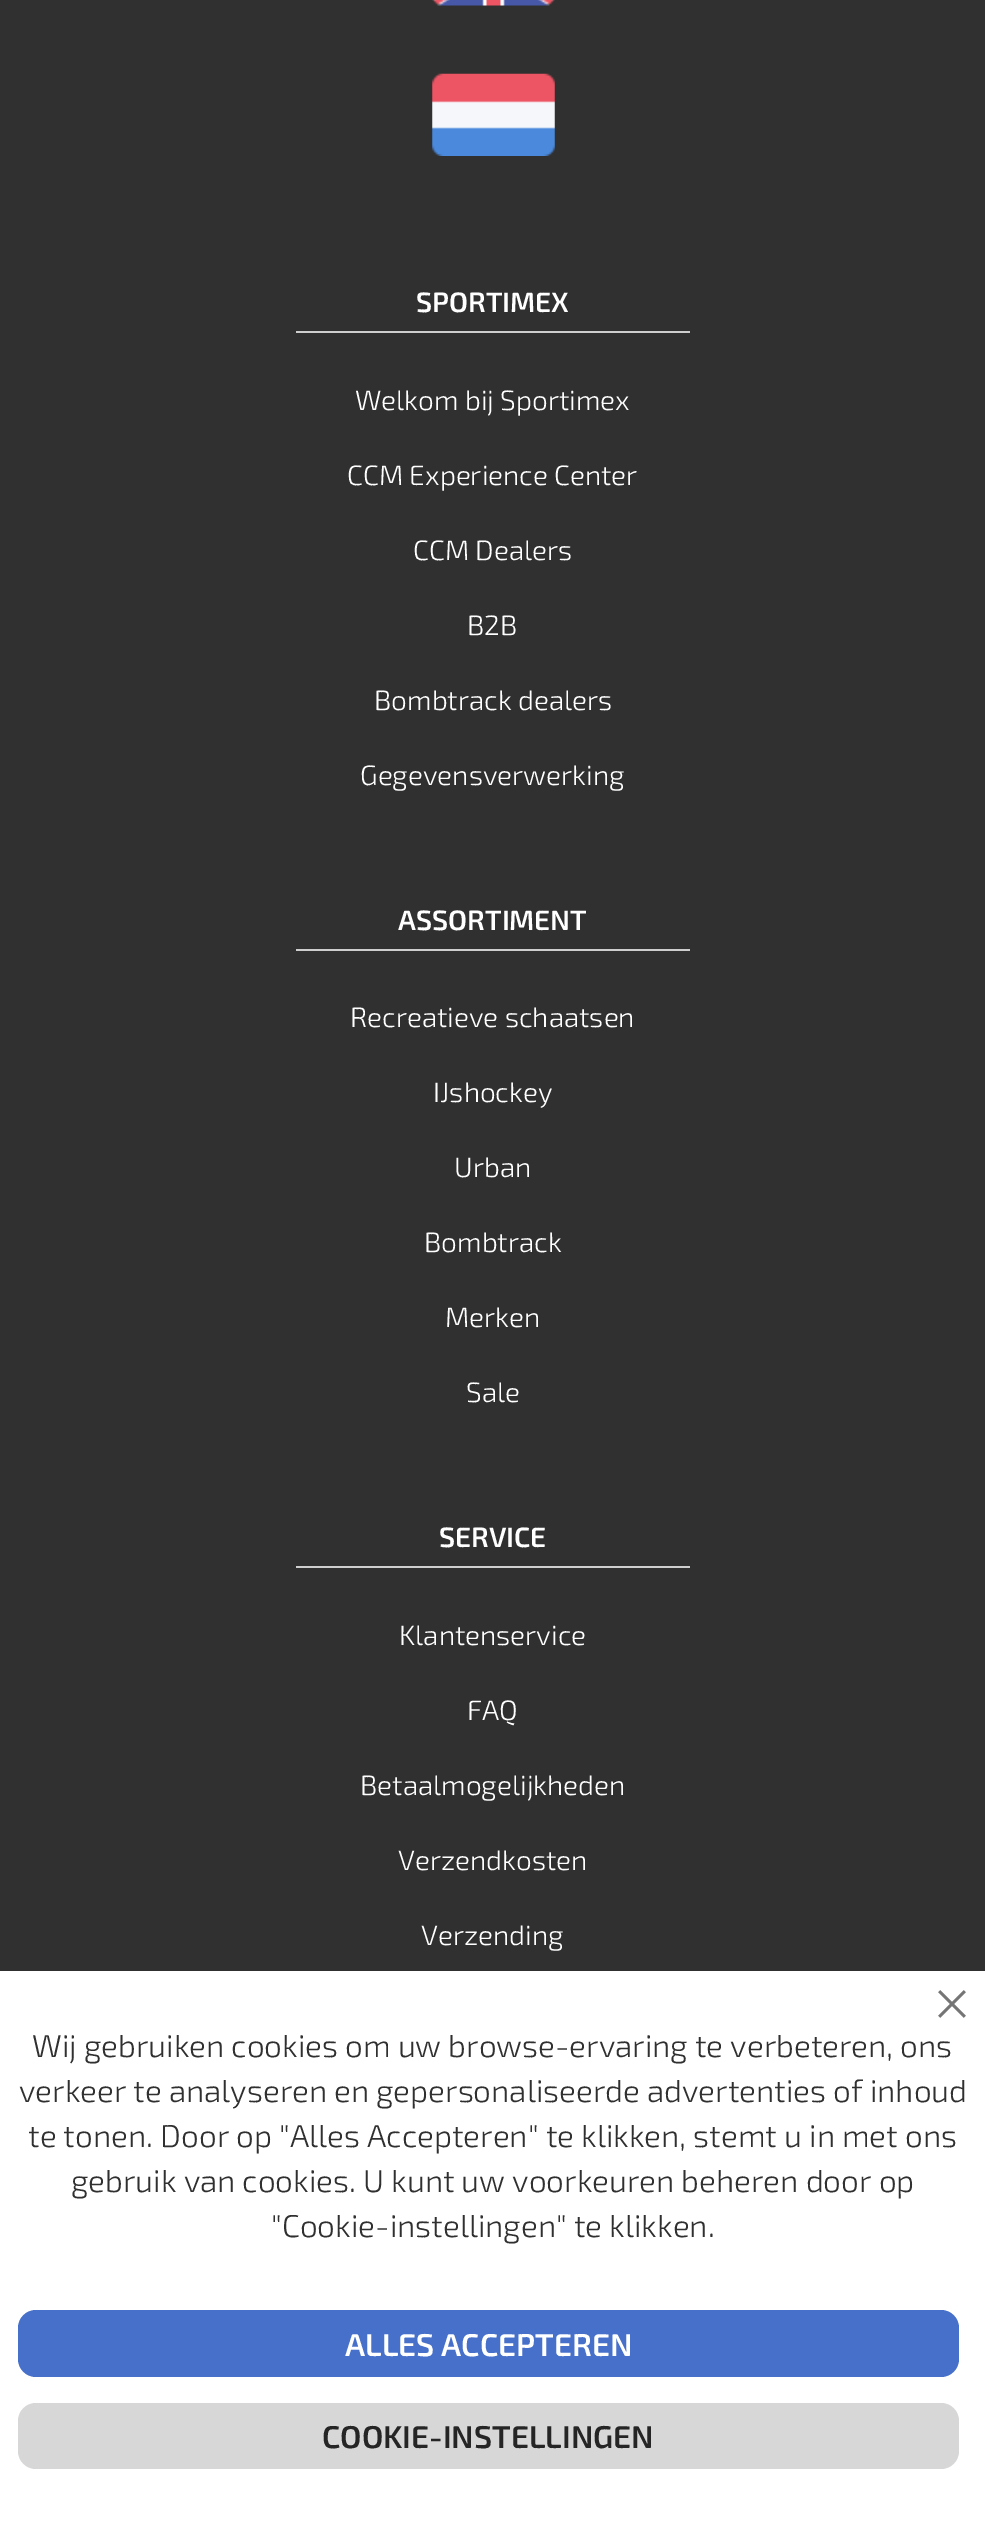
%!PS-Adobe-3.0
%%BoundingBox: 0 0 985 2521
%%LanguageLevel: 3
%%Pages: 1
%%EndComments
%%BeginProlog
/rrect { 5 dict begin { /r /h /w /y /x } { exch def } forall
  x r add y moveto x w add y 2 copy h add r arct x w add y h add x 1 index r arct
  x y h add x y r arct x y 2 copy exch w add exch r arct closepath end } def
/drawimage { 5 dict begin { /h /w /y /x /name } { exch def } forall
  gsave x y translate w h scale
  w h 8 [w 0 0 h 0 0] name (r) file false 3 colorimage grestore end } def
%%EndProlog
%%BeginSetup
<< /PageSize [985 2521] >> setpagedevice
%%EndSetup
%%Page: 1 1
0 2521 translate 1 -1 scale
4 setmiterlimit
0.188 setgray
0 0 985 2521 rectfill
(images/1.raw) 432 0 123 6 drawimage
(images/2.raw) 432 73 123 83 drawimage
0.808 setgray
296 331 394 2 rectfill
296 949 394 2 rectfill
296 1566 394 2 rectfill
1 setgray
0 1971 985 550 rectfill
(images/3.raw) 938 1990 28 28 drawimage
0.275 0.439 0.788 setrgbcolor
18 2310 941 67 18 rrect fill
0.843 setgray
18 2403 941 66 18 rrect fill
/Exo2-SemiBold [28 0 0 -28 0 0] selectfont
1 setgray
416 312 moveto (SPORTIMEX) show
/Exo2-Light [28 0 0 -28 0 0] selectfont
355 410 moveto (Welkom bij Sportimex) show
347 485 moveto (CCM Experience Center) show
413 560 moveto (CCM Dealers) show
467 635 moveto (B2B) show
374 710 moveto (Bombtrack dealers) show
360 785 moveto (Gegevensverwerking) show
/Exo2-SemiBold [28 0 0 -28 0 0] selectfont
398 930 moveto (ASSORTIMENT) show
/Exo2-Light [28 0 0 -28 0 0] selectfont
350 1027 moveto (Recreatieve schaatsen) show
433 1102 moveto (IJshockey) show
454 1177 moveto (Urban) show
424 1252 moveto (Bombtrack) show
445 1327 moveto (Merken) show
466 1402 moveto (Sale) show
/Exo2-SemiBold [28 0 0 -28 0 0] selectfont
439 1547 moveto (SERVICE) show
/Exo2-Light [28 0 0 -28 0 0] selectfont
399 1645 moveto (Klantenservice) show
467 1720 moveto (FAQ) show
360 1795 moveto (Betaalmogelijkheden) show
398 1870 moveto (Verzendkosten) show
421 1945 moveto (Verzending) show
/Exo2-Light [31.5 0 0 -31.5 0 0] selectfont
0.188 setgray
32 2057 moveto (Wij gebruiken cookies om uw browse-ervaring te verbeteren, ons) show
19 2102 moveto (verkeer te analyseren en gepersonaliseerde advertenties of inhoud) show
28 2147 moveto (te tonen. Door op "Alles Accepteren" te klikken, stemt u in met ons) show
71 2192 moveto (gebruik van cookies. U kunt uw voorkeuren beheren door op) show
271 2237 moveto ("Cookie-instellingen" te klikken.) show
/Exo2-SemiBold [31.5 0 0 -31.5 0 0] selectfont
1 setgray
345 2356 moveto (ALLES ACCEPTEREN) show
0.145 setgray
322 2448 moveto (COOKIE-INSTELLINGEN) show
showpage
%%EOF
